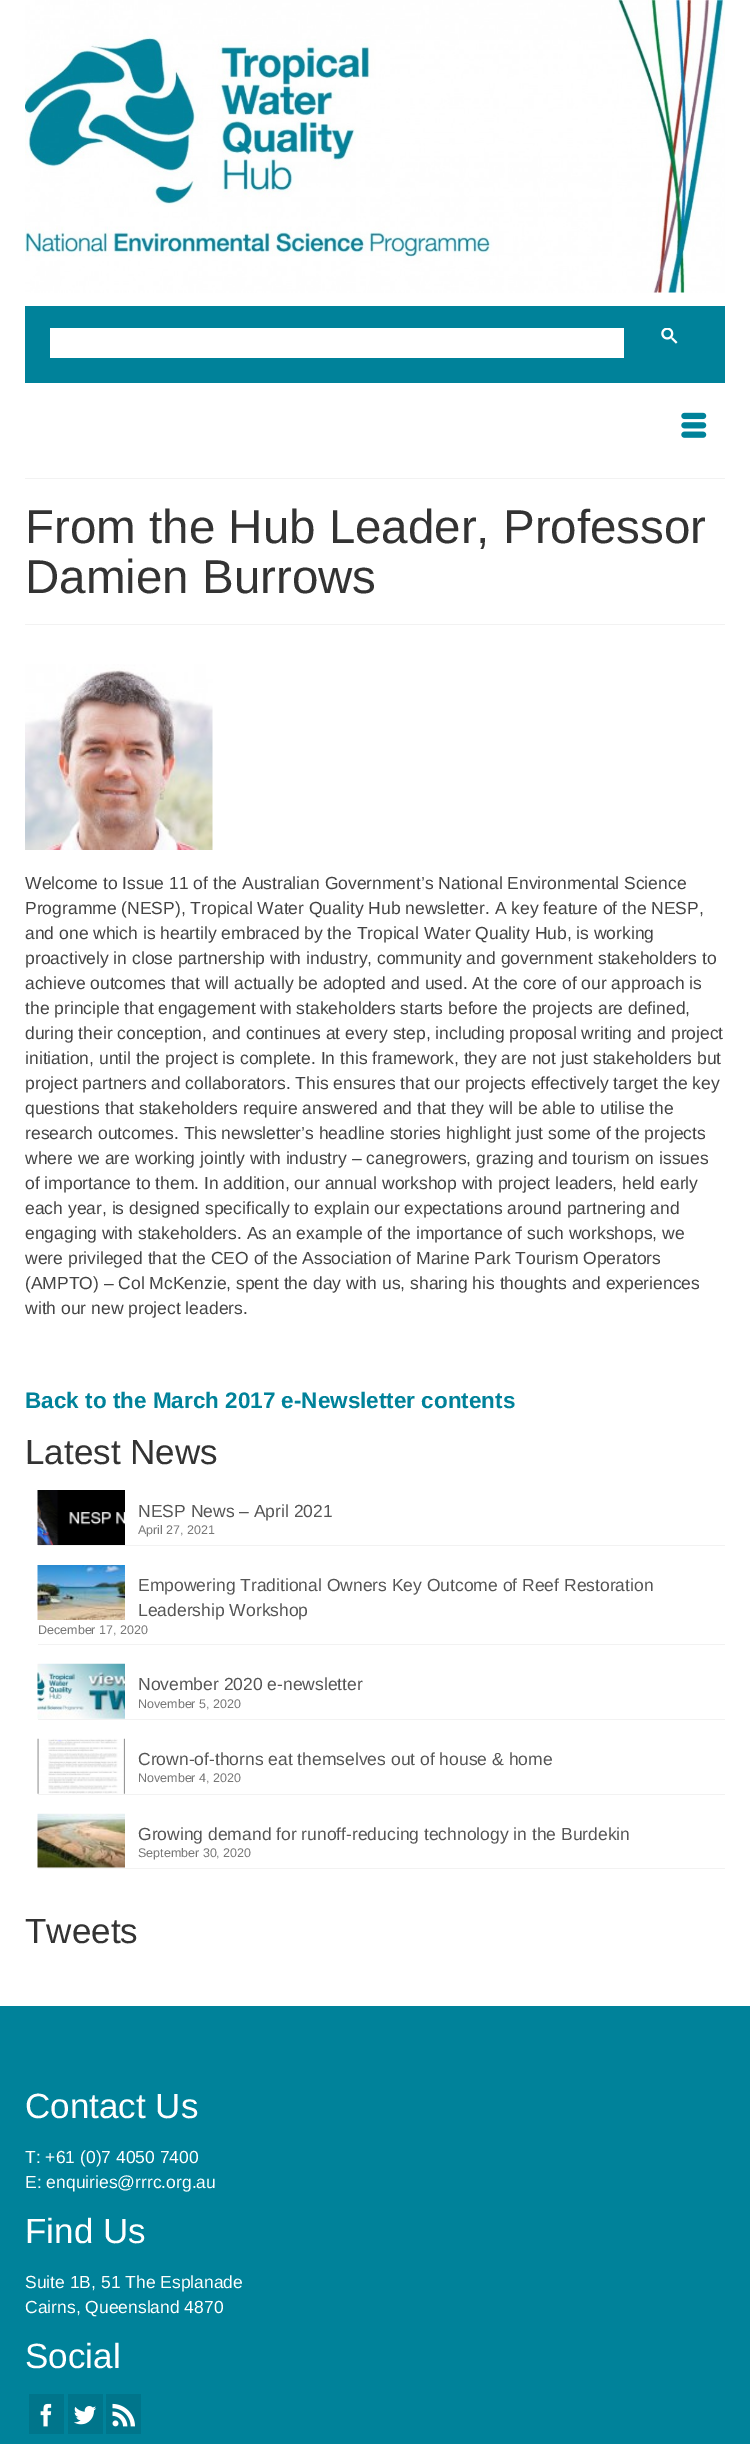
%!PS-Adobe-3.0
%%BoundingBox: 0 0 750 2444
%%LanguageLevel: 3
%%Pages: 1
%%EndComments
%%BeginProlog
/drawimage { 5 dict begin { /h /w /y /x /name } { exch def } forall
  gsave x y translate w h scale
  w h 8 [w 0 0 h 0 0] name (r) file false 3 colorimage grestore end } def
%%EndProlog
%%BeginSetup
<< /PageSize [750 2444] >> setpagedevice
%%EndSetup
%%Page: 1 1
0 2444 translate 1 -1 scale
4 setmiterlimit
1 setgray
0 0 750 2444 rectfill
(images/1.raw) 25 0 700 293 drawimage
0 0.51 0.604 setrgbcolor
25 306 700 77 rectfill
1 setgray
50 328 574 30 rectfill
(images/2.raw) 661 328 17 16 drawimage
(images/3.raw) 681 412 26 26 drawimage
0.949 setgray
25 478 700 1 rectfill
25 624 700 1 rectfill
(images/4.raw) 25 664 188 186 drawimage
38 1545 687 1 rectfill
(images/5.raw) 37 1490 88 55 drawimage
38 1644 687 1 rectfill
(images/6.raw) 37 1565 88 55 drawimage
38 1719 687 1 rectfill
(images/7.raw) 37 1663 88 56 drawimage
38 1794 687 1 rectfill
(images/8.raw) 37 1738 88 56 drawimage
38 1868 687 1 rectfill
(images/9.raw) 37 1813 88 55 drawimage
0 0.51 0.604 setrgbcolor
0 2006 750 438 rectfill
0 0.459 0.545 setrgbcolor
29 2394 35 40 rectfill
(images/10.raw) 40 2403 12 24 drawimage
68 2394 35 40 rectfill
(images/11.raw) 74 2406 23 19 drawimage
106 2394 35 40 rectfill
(images/12.raw) 112 2403 23 24 drawimage
/LiberationSans-Regular [47.5 0 0 -47.5 0 0] selectfont
0.2 setgray
25 543 moveto (From the Hub Leader, Professor) show
25 593 moveto (Damien Burrows) show
/LiberationSans-Regular [17.5 0 0 -17.5 0 0] selectfont
0.267 setgray
25 889 moveto (Welcome to Issue 11 of the Australian Government’s National Environmental Science) show
25 914 moveto (Programme \(NESP\), Tropical Water Quality Hub newsletter. A key feature of the NESP,) show
25 939 moveto (and one which is heartily embraced by the Tropical Water Quality Hub, is working) show
25 964 moveto (proactively in close partnership with industry, community and government stakeholders to) show
25 989 moveto (achieve outcomes that will actually be adopted and used. At the core of our approach is) show
25 1014 moveto (the principle that engagement with stakeholders starts before the projects are defined,) show
25 1039 moveto (during their conception, and continues at every step, including proposal writing and project) show
25 1064 moveto (initiation, until the project is complete. In this framework, they are not just stakeholders but) show
25 1089 moveto (project partners and collaborators. This ensures that our projects effectively target the key) show
25 1114 moveto (questions that stakeholders require answered and that they will be able to utilise the) show
25 1139 moveto (research outcomes. This newsletter’s headline stories highlight just some of the projects) show
25 1164 moveto (where we are working jointly with industry – canegrowers, grazing and tourism on issues) show
25 1189 moveto (of importance to them. In addition, our annual workshop with project leaders, held early) show
25 1214 moveto (each year, is designed specifically to explain our expectations around partnering and) show
25 1239 moveto (engaging with stakeholders. As an example of the importance of such workshops, we) show
25 1264 moveto (were privileged that the CEO of the Association of Marine Park Tourism Operators) show
25 1289 moveto (\(AMPTO\) – Col McKenzie, spent the day with us, sharing his thoughts and experiences) show
25 1314 moveto (with our new project leaders.) show
/LiberationSans-Bold [22.5 0 0 -22.5 0 0] selectfont
0 0.51 0.604 setrgbcolor
25 1408 moveto (Back to the March 2017 e-Newsletter contents) show
/LiberationSans-Regular [35 0 0 -35 0 0] selectfont
0.2 setgray
25 1464 moveto (Latest News) show
/LiberationSans-Regular [17.5 0 0 -17.5 0 0] selectfont
0.333 setgray
138 1517 moveto (NESP News – April 2021) show
/LiberationSans-Regular [12.5 0 0 -12.5 0 0] selectfont
0.467 setgray
138 1534 moveto (April 27, 2021) show
/LiberationSans-Regular [17.5 0 0 -17.5 0 0] selectfont
0.333 setgray
138 1591 moveto (Empowering Traditional Owners Key Outcome of Reef Restoration) show
138 1616 moveto (Leadership Workshop) show
/LiberationSans-Regular [12.5 0 0 -12.5 0 0] selectfont
0.467 setgray
38 1634 moveto (December 17, 2020) show
/LiberationSans-Regular [17.5 0 0 -17.5 0 0] selectfont
0.333 setgray
138 1690 moveto (November 2020 e-newsletter) show
/LiberationSans-Regular [12.5 0 0 -12.5 0 0] selectfont
0.467 setgray
138 1708 moveto (November 5, 2020) show
/LiberationSans-Regular [17.5 0 0 -17.5 0 0] selectfont
0.333 setgray
138 1765 moveto (Crown-of-thorns eat themselves out of house & home) show
/LiberationSans-Regular [12.5 0 0 -12.5 0 0] selectfont
0.467 setgray
138 1782 moveto (November 4, 2020) show
/LiberationSans-Regular [17.5 0 0 -17.5 0 0] selectfont
0.333 setgray
138 1840 moveto (Growing demand for runoff-reducing technology in the Burdekin) show
/LiberationSans-Regular [12.5 0 0 -12.5 0 0] selectfont
0.467 setgray
138 1857 moveto (September 30, 2020) show
/LiberationSans-Regular [35 0 0 -35 0 0] selectfont
0.2 setgray
25 1943 moveto (Tweets) show
1 setgray
25 2118 moveto (Contact Us) show
/LiberationSans-Regular [17.5 0 0 -17.5 0 0] selectfont
25 2163 moveto (T: +61 \(0\)7 4050 7400) show
25 2188 moveto (E: enquiries@rrrc.org.au) show
/LiberationSans-Regular [35 0 0 -35 0 0] selectfont
25 2243 moveto (Find Us) show
/LiberationSans-Regular [17.5 0 0 -17.5 0 0] selectfont
25 2288 moveto (Suite 1B, 51 The Esplanade) show
25 2313 moveto (Cairns, Queensland 4870) show
/LiberationSans-Regular [35 0 0 -35 0 0] selectfont
25 2368 moveto (Social) show
showpage
%%EOF
